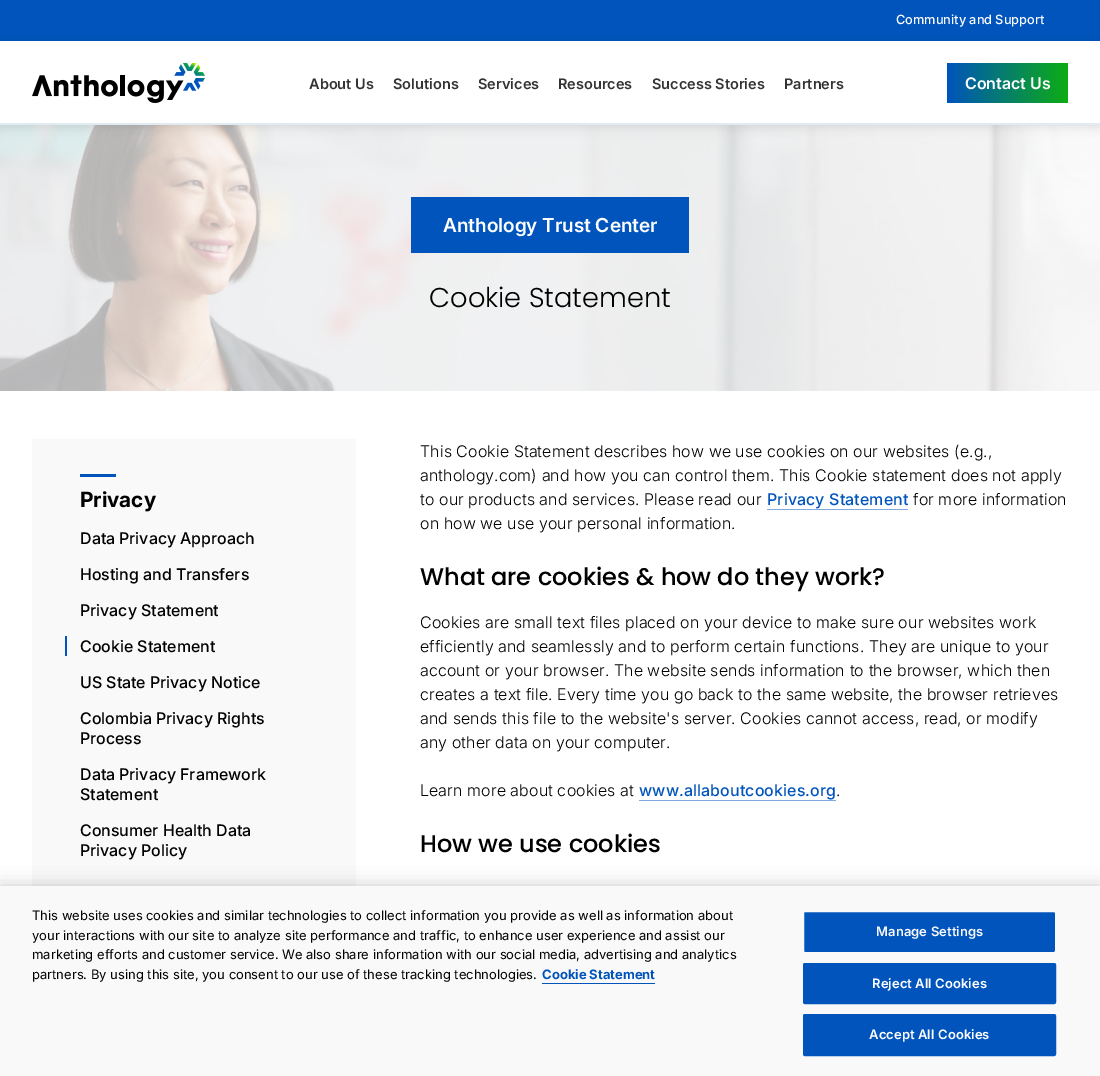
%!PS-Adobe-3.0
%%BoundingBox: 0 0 1100 1076
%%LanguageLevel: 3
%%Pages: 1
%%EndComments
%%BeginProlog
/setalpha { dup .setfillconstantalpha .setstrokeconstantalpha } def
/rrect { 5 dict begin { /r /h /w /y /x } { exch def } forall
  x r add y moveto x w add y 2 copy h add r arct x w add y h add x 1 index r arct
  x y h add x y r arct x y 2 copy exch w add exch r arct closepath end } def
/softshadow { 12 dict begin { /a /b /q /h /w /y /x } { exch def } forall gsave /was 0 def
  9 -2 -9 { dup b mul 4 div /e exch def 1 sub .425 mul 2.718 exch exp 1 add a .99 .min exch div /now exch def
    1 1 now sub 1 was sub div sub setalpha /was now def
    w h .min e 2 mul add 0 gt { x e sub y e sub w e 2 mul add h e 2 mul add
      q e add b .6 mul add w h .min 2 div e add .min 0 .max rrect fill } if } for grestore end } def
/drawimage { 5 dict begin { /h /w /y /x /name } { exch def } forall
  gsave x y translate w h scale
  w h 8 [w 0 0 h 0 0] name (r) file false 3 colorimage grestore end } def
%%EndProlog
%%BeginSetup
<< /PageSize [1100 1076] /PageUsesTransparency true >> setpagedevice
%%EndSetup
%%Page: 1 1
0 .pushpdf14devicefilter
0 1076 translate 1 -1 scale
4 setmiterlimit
1 setgray
0 0 1100 1076 rectfill
0 0.329 0.737 setrgbcolor
0 0 1100 41 rectfill
(images/2.raw) 0 125 1100 266 drawimage
gsave
newpath 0 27 moveto 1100 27 lineto 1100 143 lineto 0 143 lineto closepath 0 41 moveto 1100 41 lineto 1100 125 lineto 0 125 lineto closepath eoclip newpath
0 setgray
0 43 1100 84 0 5 0.1 softshadow
grestore
0.882 0.922 0.953 setrgbcolor
0 123 1100 2 rectfill
(images/1.raw) 32 63 173 40 drawimage
gsave newpath 947 63 moveto 1068 63 lineto 1068 103 lineto 947 103 lineto closepath clip newpath
<< /ShadingType 2 /ColorSpace /DeviceRGB /Coords [947 83 1068 83] /Extend [true true] /Function << /FunctionType 2 /Domain [0 1] /C0 [0 0.329 0.737] /C1 [0.051 0.675 0.078] /N 1 >> >> shfill grestore
0 0.329 0.737 setrgbcolor
411 197 278 56 rectfill
0.976 setgray
32 439 324 447 rectfill
0 0.329 0.737 setrgbcolor
80 474 36 3 rectfill
65 636 2 20 rectfill
0.502 0.667 0.871 setrgbcolor
767 509 141 1 rectfill
639 800 197 1 rectfill
0 setgray
0 886 1100 190 0 9 0.2 softshadow
0.976 setgray
0 886 1100 190 rectfill
0 0.329 0.737 setrgbcolor
542 983 113 1 rectfill
803.5 911.5 252 41 1.5 rrect gsave fill grestore
0.976 setgray
stroke
0 0.329 0.737 setrgbcolor
803.5 963.5 252 40 1.5 rrect gsave fill grestore
stroke
803.5 1014.5 252 41 1.5 rrect gsave fill grestore
stroke
/Inter-Medium [12.75 0 0 -12.75 0 0] selectfont
1 setgray
896 24 moveto (Community and Support) show
/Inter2-SemiBold [14.5 0 0 -14.5 0 0] selectfont
0.2 setgray
309 89 moveto (About Us) show
393 89 moveto (Solutions) show
478 89 moveto (Services) show
558 89 moveto (Resources) show
652 89 moveto (Success Stories) show
784 89 moveto (Partners) show
/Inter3-SemiBold [16 0 0 -16 0 0] selectfont
1 setgray
965 89 moveto (Contact Us) show
/Inter-SemiBold [19.25 0 0 -19.25 0 0] selectfont
443 232 moveto (Anthology Trust Center) show
/Poppins-Light [27.25 0 0 -27.25 0 0] selectfont
0 setgray
429 307 moveto (Cookie Statement) show
/Inter-Bold [21 0 0 -21 0 0] selectfont
80 507 moveto (Privacy) show
/Inter2-Medium [16 0 0 -16 0 0] selectfont
80 544 moveto (Data Privacy Approach) show
80 580 moveto (Hosting and Transfers) show
80 616 moveto (Privacy Statement) show
80 652 moveto (Cookie Statement) show
80 688 moveto (US State Privacy Notice) show
80 724 moveto (Colombia Privacy Rights) show
80 744 moveto (Process) show
80 780 moveto (Data Privacy Framework) show
80 800 moveto (Statement) show
80 836 moveto (Consumer Health Data) show
80 856 moveto (Privacy Policy) show
/Inter-Light [16 0 0 -16 0 0] selectfont
420 457 moveto 0.15 0 (This Cookie Statement describes how we use cookies on our websites \(e.g.,) ashow
420 481 moveto 0.15 0 (anthology.com\) and how you can control them. This Cookie statement does not apply) ashow
420 505 moveto 0.15 0 (to our products and services. Please read our) ashow
/Inter2-Medium [16 0 0 -16 0 0] selectfont
0 0.329 0.737 setrgbcolor
767 505 moveto 0.15 0 (Privacy Statement) ashow
/Inter-Light [16 0 0 -16 0 0] selectfont
0 setgray
913 505 moveto 0.15 0 (for more information) ashow
420 529 moveto 0.15 0 (on how we use your personal information.) ashow
/Poppins-Medium [24 0 0 -24 0 0] selectfont
420 585 moveto (What are cookies & how do they work?) show
/Inter-Light [16 0 0 -16 0 0] selectfont
420 628 moveto 0.15 0 (Cookies are small text files placed on your device to make sure our websites work) ashow
420 652 moveto 0.15 0 (efficiently and seamlessly and to perform certain functions. They are unique to your) ashow
420 676 moveto 0.15 0 (account or your browser. The website sends information to the browser, which then) ashow
420 700 moveto 0.15 0 (creates a text file. Every time you go back to the same website, the browser retrieves) ashow
420 724 moveto 0.15 0 (and sends this file to the website's server. Cookies cannot access, read, or modify) ashow
420 748 moveto 0.15 0 (any other data on your computer.) ashow
420 796 moveto 0.15 0 (Learn more about cookies at) ashow
/Inter2-Medium [16 0 0 -16 0 0] selectfont
0 0.329 0.737 setrgbcolor
639 796 moveto 0.15 0 (www.allaboutcookies.org) ashow
/Inter-Light [16 0 0 -16 0 0] selectfont
0 setgray
836 796 moveto 0.15 0 (.) ashow
/Poppins-Medium [24 0 0 -24 0 0] selectfont
420 852 moveto (How we use cookies) show
/Inter-Regular [13 0 0 -13 0 0] selectfont
32 920 moveto (This website uses cookies and similar technologies to collect information you provide as well as information about) show
32 940 moveto (your interactions with our site to analyze site performance and traffic, to enhance user experience and assist our) show
32 959 moveto (marketing efforts and customer service. We also share information with our social media, advertising and analytics) show
32 979 moveto (partners. By using this site, you consent to our use of these tracking technologies.) show
/Inter2-Bold [13 0 0 -13 0 0] selectfont
0 0.329 0.737 setrgbcolor
542 979 moveto (Cookie Statement) show
/Inter2-SemiBold [13 0 0 -13 0 0] selectfont
0.976 setgray
876 936 moveto 0.1 0 (Manage Settings) ashow
1 setgray
872 988 moveto 0.1 0 (Reject All Cookies) ashow
869 1039 moveto 0.1 0 (Accept All Cookies) ashow
.poppdf14devicefilter showpage
%%EOF
